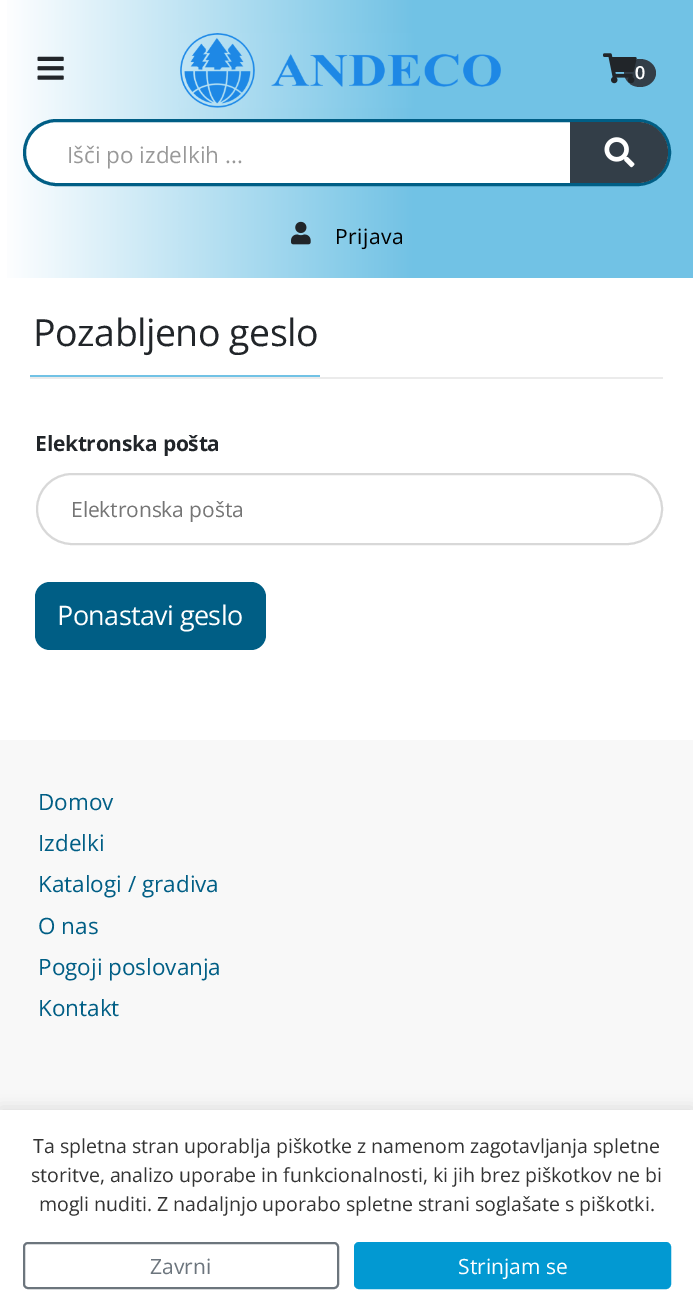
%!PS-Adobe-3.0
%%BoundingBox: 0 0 693 1311
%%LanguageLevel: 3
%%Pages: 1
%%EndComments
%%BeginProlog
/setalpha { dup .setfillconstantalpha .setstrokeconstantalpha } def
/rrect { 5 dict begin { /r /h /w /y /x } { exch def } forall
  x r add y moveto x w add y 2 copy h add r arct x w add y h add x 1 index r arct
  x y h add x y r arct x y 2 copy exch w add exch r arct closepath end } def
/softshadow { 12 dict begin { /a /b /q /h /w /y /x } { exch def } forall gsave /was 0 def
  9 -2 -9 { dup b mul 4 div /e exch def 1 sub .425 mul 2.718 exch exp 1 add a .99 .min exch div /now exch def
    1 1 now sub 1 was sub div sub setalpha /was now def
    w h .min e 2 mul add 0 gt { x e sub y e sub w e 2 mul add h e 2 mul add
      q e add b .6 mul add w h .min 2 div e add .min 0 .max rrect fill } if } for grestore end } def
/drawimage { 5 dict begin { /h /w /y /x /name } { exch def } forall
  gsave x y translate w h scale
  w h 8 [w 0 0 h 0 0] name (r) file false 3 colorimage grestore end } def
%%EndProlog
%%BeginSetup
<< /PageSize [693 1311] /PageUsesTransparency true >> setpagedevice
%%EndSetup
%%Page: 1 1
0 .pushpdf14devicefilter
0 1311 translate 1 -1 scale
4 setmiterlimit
1 setgray
0 0 693 1311 rectfill
gsave newpath 7 0 moveto 693 0 lineto 693 278 lineto 7 278 lineto closepath clip newpath
<< /ShadingType 2 /ColorSpace /DeviceRGB /Coords [0 139 693 139] /Extend [true true] /Function << /FunctionType 3 /Domain [0 1] /Functions [<< /FunctionType 2 /Domain [0 1] /C0 [1 1 1] /C1 [0.443 0.761 0.898] /N 1 >> << /FunctionType 2 /Domain [0 1] /C0 [0.443 0.761 0.898] /C1 [0.443 0.761 0.898] /N 1 >>] /Bounds [0.6] /Encode [0 1 0 1] >> >> shfill grestore
(images/1.raw) 37 56 27 24 drawimage
(images/2.raw) 180 33 321 75 drawimage
0.2 0.243 0.282 setrgbcolor
newpath 640 59 moveto 649 59 656 65.5 656 73 curveto 656 80.5 649 87 640 87 curveto 631 87 624 80.5 624 73 curveto 624 65.5 631 59 640 59 curveto closepath fill
1 setgray
24.5 120.5 645 64 32 rrect gsave fill grestore
0 0.369 0.522 setrgbcolor
3 setlinewidth
stroke
0.2 0.243 0.282 setrgbcolor
newpath 570 122 moveto 637.5 122 lineto 654.5 122 668 135.5 668 152.5 curveto 668 169.5 654.5 183 637.5 183 curveto 570 183 lineto closepath fill
(images/4.raw) 604 137 31 31 drawimage
(images/5.raw) 291 221 20 24 drawimage
0.922 setgray
30 377 633 2 rectfill
0.443 0.761 0.898 setrgbcolor
30 375 290 2 rectfill
0.847 setgray
2 setlinewidth
37 474 625 70 35 rrect stroke
0 0.369 0.522 setrgbcolor
35 582 231 68 15 rrect fill
0.973 setgray
0 740 693 370 rectfill
0 setgray
0 1107 693 201 0 7.5 0.1 softshadow
1 setgray
0 1110 693 201 rectfill
0.424 0.459 0.49 setrgbcolor
24 1243 314 45 4 rrect stroke
0.008 0.6 0.824 setrgbcolor
355 1243 315 45 4 rrect gsave fill grestore
stroke
/OpenSans-SemiBold [18 0 0 -18 0 0] selectfont
1 setgray
635 79 moveto (0) show
(images/3.raw) 603 53 34 31 drawimage
/OpenSans-Regular [22.5 0 0 -22.5 0 0] selectfont
0.6 setgray
67 163 moveto (Išči po izdelkih ...) show
/OpenSans-Regular [21 0 0 -21 0 0] selectfont
0 setgray
335 244 moveto 0.5 0 (Prijava) ashow
/OpenSans-Regular [37.5 0 0 -37.5 0 0] selectfont
0.129 0.145 0.161 setrgbcolor
33 346 moveto -0.5 0 (Pozabljeno geslo) ashow
/OpenSans-Bold [21 0 0 -21 0 0] selectfont
35 451 moveto -0.25 0 (Elektronska pošta) ashow
/OpenSans-Regular [21 0 0 -21 0 0] selectfont
0.459 setgray
71 517 moveto -0.1 0 (Elektronska pošta) ashow
/OpenSans-Regular [27 0 0 -27 0 0] selectfont
1 setgray
57 625 moveto -0.6 0 (Ponastavi geslo) ashow
/OpenSans-Regular [22.5 0 0 -22.5 0 0] selectfont
0 0.369 0.522 setrgbcolor
38 810 moveto (Domov) show
38 851 moveto (Izdelki) show
38 892 moveto (Katalogi / gradiva) show
38 934 moveto (O nas) show
38 975 moveto (Pogoji poslovanja) show
38 1016 moveto (Kontakt) show
/OpenSans-Regular [19.5 0 0 -19.5 0 0] selectfont
0.2 setgray
33 1153 moveto (Ta spletna stran uporablja piškotke z namenom zagotavljanja spletne) show
31 1182 moveto (storitve, analizo uporabe in funkcionalnosti, ki jih brez piškotkov ne bi) show
39 1211 moveto (mogli nuditi. Z nadaljnjo uporabo spletne strani soglašate s piškotki.) show
/OpenSans-Regular [21 0 0 -21 0 0] selectfont
0.424 0.459 0.49 setrgbcolor
150 1274 moveto (Zavrni) show
1 setgray
458 1274 moveto (Strinjam se) show
.poppdf14devicefilter showpage
%%EOF
